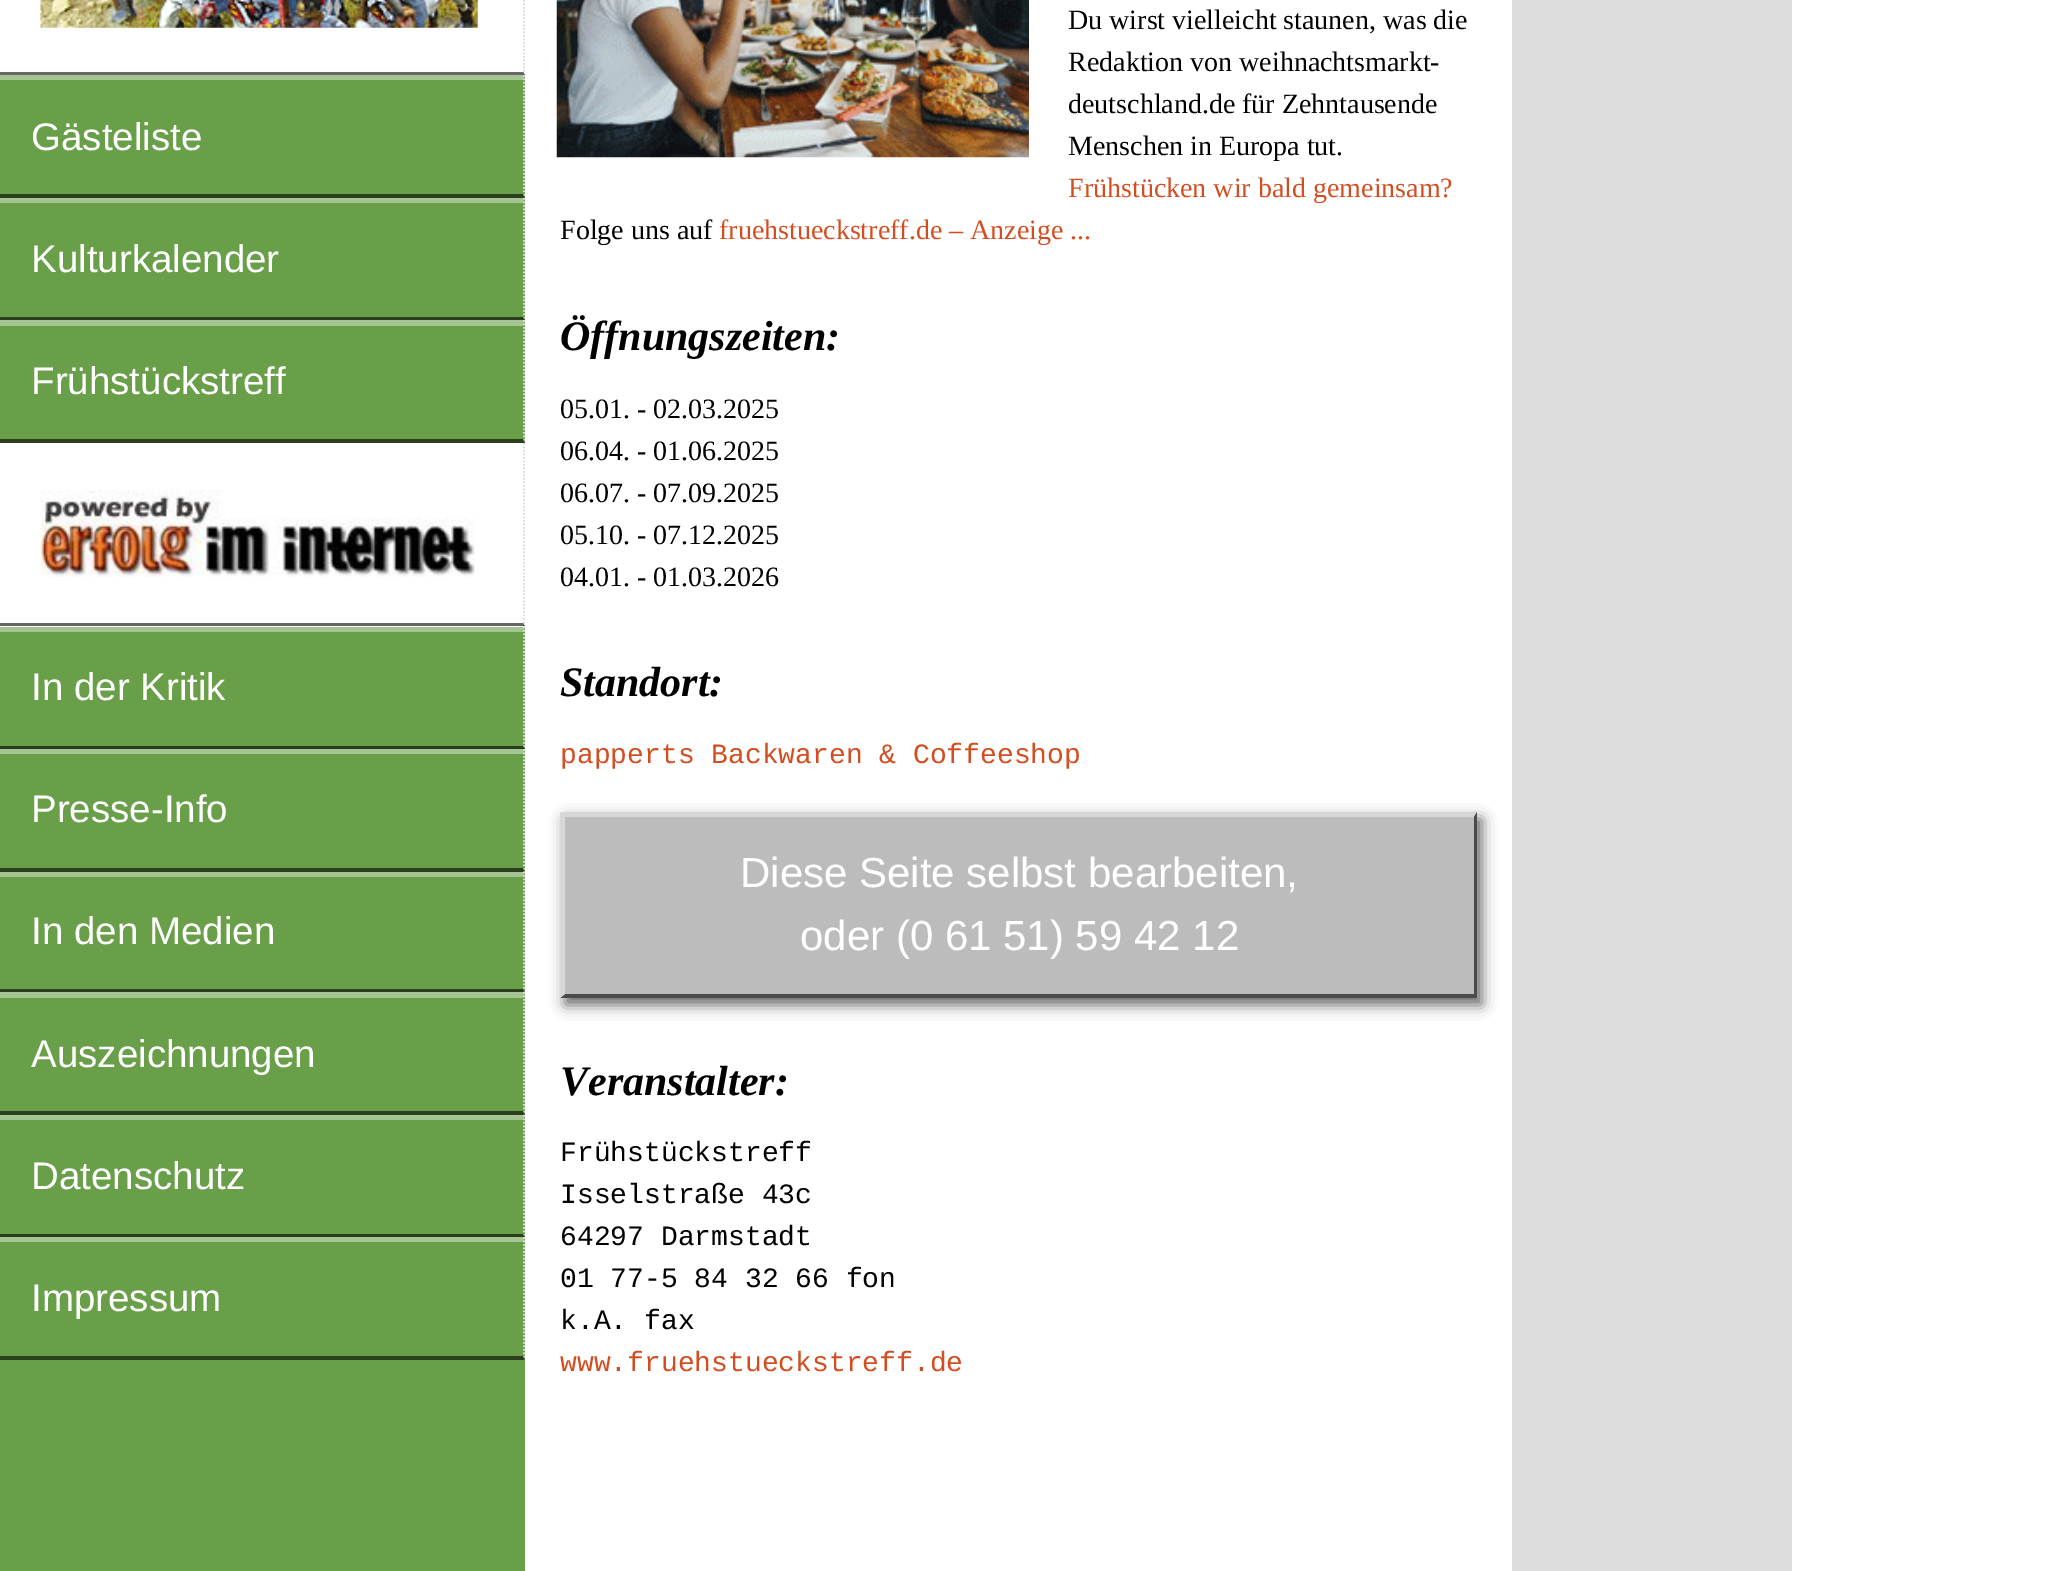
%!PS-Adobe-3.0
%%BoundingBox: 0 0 2049 1571
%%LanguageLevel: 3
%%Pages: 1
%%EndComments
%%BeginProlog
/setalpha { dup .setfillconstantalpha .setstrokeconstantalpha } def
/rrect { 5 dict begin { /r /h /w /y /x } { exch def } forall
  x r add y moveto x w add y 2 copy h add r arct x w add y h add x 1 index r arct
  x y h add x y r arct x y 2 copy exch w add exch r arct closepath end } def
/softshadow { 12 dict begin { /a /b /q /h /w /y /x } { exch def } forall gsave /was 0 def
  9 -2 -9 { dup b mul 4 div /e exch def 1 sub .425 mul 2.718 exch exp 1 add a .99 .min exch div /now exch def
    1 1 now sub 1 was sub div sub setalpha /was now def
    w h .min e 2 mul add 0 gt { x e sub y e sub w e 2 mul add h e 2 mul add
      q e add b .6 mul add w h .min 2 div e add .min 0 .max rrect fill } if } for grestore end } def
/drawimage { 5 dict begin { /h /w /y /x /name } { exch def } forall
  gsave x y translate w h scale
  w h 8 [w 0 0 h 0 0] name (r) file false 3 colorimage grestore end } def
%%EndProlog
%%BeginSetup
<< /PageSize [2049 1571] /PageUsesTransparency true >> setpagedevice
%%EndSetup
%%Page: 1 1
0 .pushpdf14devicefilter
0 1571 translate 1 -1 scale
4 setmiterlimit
1 setgray
0 0 2049 1571 rectfill
0.408 0.624 0.282 setrgbcolor
0 75 525 1496 rectfill
0.863 setgray
1.8 setlinewidth
[1.75 1.75] 0 setdash
newpath 524 -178.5 moveto 524 75 lineto stroke
0.6 setalpha
0 setgray
newpath 525 75 moveto 0 75 lineto 0 72 lineto 523 72 lineto closepath fill
1 setalpha
(images/1.raw) 40 0 438 28 drawimage
0.643 0.773 0.569 setrgbcolor
newpath 0 75 moveto 525 75 lineto 523 80 lineto 0 80 lineto closepath fill
0.863 setgray
newpath 524 75 moveto 524 198 lineto stroke
0.6 setalpha
0 setgray
newpath 525 198 moveto 0 198 lineto 0 194 lineto 523 194 lineto closepath fill
1 setalpha
0.643 0.773 0.569 setrgbcolor
newpath 0 198 moveto 525 198 lineto 523 203 lineto 0 203 lineto closepath fill
0.863 setgray
newpath 524 198 moveto 524 320 lineto stroke
0.6 setalpha
0 setgray
newpath 525 320 moveto 0 320 lineto 0 317 lineto 523 317 lineto closepath fill
1 setalpha
0.643 0.773 0.569 setrgbcolor
newpath 0 320 moveto 525 320 lineto 523 326 lineto 0 326 lineto closepath fill
0.863 setgray
newpath 524 320 moveto 524 443 lineto stroke
0.6 setalpha
0 setgray
newpath 525 443 moveto 0 443 lineto 0 439 lineto 523 439 lineto closepath fill
1 setalpha
1 setgray
0 443 525 184 rectfill
0.863 setgray
newpath 524 443 moveto 524 626.5 lineto stroke
0.6 setalpha
0 setgray
newpath 525 626 moveto 0 626 lineto 0 623 lineto 523 623 lineto closepath fill
1 setalpha
(images/2.raw) 40 490 435 87 drawimage
0.4 setalpha
1 setgray
newpath 0 626 moveto 525 626 lineto 523 632 lineto 0 632 lineto closepath fill
1 setalpha
0.863 setgray
newpath 524 626.5 moveto 524 749 lineto stroke
0.6 setalpha
0 setgray
newpath 525 749 moveto 0 749 lineto 0 746 lineto 523 746 lineto closepath fill
1 setalpha
0.643 0.773 0.569 setrgbcolor
newpath 0 749 moveto 525 749 lineto 523 754 lineto 0 754 lineto closepath fill
0.863 setgray
newpath 524 749 moveto 524 871.5 lineto stroke
0.6 setalpha
0 setgray
newpath 525 872 moveto 0 872 lineto 0 868 lineto 523 868 lineto closepath fill
1 setalpha
0.643 0.773 0.569 setrgbcolor
newpath 0 872 moveto 525 872 lineto 523 877 lineto 0 877 lineto closepath fill
0.863 setgray
newpath 524 871.5 moveto 524 992 lineto stroke
0.6 setalpha
0 setgray
newpath 525 992 moveto 0 992 lineto 0 989 lineto 523 989 lineto closepath fill
1 setalpha
0.643 0.773 0.569 setrgbcolor
newpath 0 992 moveto 525 992 lineto 523 998 lineto 0 998 lineto closepath fill
0.863 setgray
newpath 524 992 moveto 524 1115 lineto stroke
0.6 setalpha
0 setgray
newpath 525 1115 moveto 0 1115 lineto 0 1111 lineto 523 1111 lineto closepath fill
1 setalpha
0.643 0.773 0.569 setrgbcolor
newpath 0 1115 moveto 525 1115 lineto 523 1120 lineto 0 1120 lineto closepath fill
0.863 setgray
newpath 524 1115 moveto 524 1237 lineto stroke
0.6 setalpha
0 setgray
newpath 525 1237 moveto 0 1237 lineto 0 1234 lineto 523 1234 lineto closepath fill
1 setalpha
0.643 0.773 0.569 setrgbcolor
newpath 0 1237 moveto 525 1237 lineto 523 1242 lineto 0 1242 lineto closepath fill
0.863 setgray
newpath 524 1237 moveto 524 1360 lineto stroke
0.6 setalpha
0 setgray
newpath 525 1360 moveto 0 1360 lineto 0 1356 lineto 523 1356 lineto closepath fill
1 setalpha
(images/3.raw) 556 0 473 158 drawimage
565 819 917 186 0 7 0.6 softshadow
0.737 setgray
565 817 909 177 rectfill
0.843 setgray
newpath 560 812 moveto 1477 812 lineto 1474 817 lineto 565 817 lineto closepath fill
0.294 setgray
newpath 1477 812 moveto 1477 998 lineto 1474 994 lineto 1474 817 lineto closepath fill
newpath 1477 998 moveto 560 998 lineto 565 994 lineto 1474 994 lineto closepath fill
0.843 setgray
newpath 560 998 moveto 560 812 lineto 565 817 lineto 565 994 lineto closepath fill
0.863 setgray
1512 0 280 1571 rectfill
/LiberationSans-Regular [38.5 0 0 -38.5 0 0] selectfont
1 setgray
31 150 moveto (Gästeliste) show
31 272 moveto (Kulturkalender) show
31 394 moveto (Frühstückstreff) show
31 700 moveto (In der Kritik) show
31 822 moveto (Presse-Info) show
31 944 moveto (In den Medien) show
31 1067 moveto (Auszeichnungen) show
31 1189 moveto (Datenschutz) show
31 1311 moveto (Impressum) show
/LiberationSerif-Regular [28 0 0 -28 0 0] selectfont
0 setgray
1068 29 moveto (Du wirst vielleicht staunen, was die) show
1068 71 moveto (Redaktion von weihnachtsmarkt-) show
1068 113 moveto (deutschland.de für Zehntausende) show
1068 155 moveto (Menschen in Europa tut.) show
0.831 0.302 0.125 setrgbcolor
1068 197 moveto (Frühstücken wir bald gemeinsam?) show
0 setgray
560 239 moveto (Folge uns auf) show
0.831 0.302 0.125 setrgbcolor
719 239 moveto (fruehstueckstreff.de – Anzeige ...) show
/LiberationSerif-BoldItalic [42 0 0 -42 0 0] selectfont
0 setgray
560 350 moveto (Öffnungszeiten:) show
/LiberationSerif-Regular [28 0 0 -28 0 0] selectfont
560 418 moveto (05.01. - 02.03.2025) show
560 460 moveto (06.04. - 01.06.2025) show
560 502 moveto (06.07. - 07.09.2025) show
560 544 moveto (05.10. - 07.12.2025) show
560 586 moveto (04.01. - 01.03.2026) show
/LiberationSerif-BoldItalic [42 0 0 -42 0 0] selectfont
560 696 moveto (Standort:) show
/LiberationMono-Regular [28 0 0 -28 0 0] selectfont
0.831 0.302 0.125 setrgbcolor
560 763 moveto (papperts Backwaren & Coffeeshop) show
/LiberationSans-Regular [42 0 0 -42 0 0] selectfont
1 setgray
740 887 moveto (Diese Seite selbst bearbeiten,) show
800 950 moveto (oder \(0 61 51\) 59 42 12) show
/LiberationSerif-BoldItalic [42 0 0 -42 0 0] selectfont
0 setgray
560 1095 moveto (Veranstalter:) show
/LiberationMono-Regular [28 0 0 -28 0 0] selectfont
560 1161 moveto (Frühstückstreff) show
560 1203 moveto (Isselstraße 43c) show
560 1245 moveto (64297 Darmstadt) show
560 1287 moveto (01 77-5 84 32 66 fon) show
560 1329 moveto (k.A. fax) show
0.831 0.302 0.125 setrgbcolor
560 1371 moveto (www.fruehstueckstreff.de) show
.poppdf14devicefilter showpage
%%EOF
